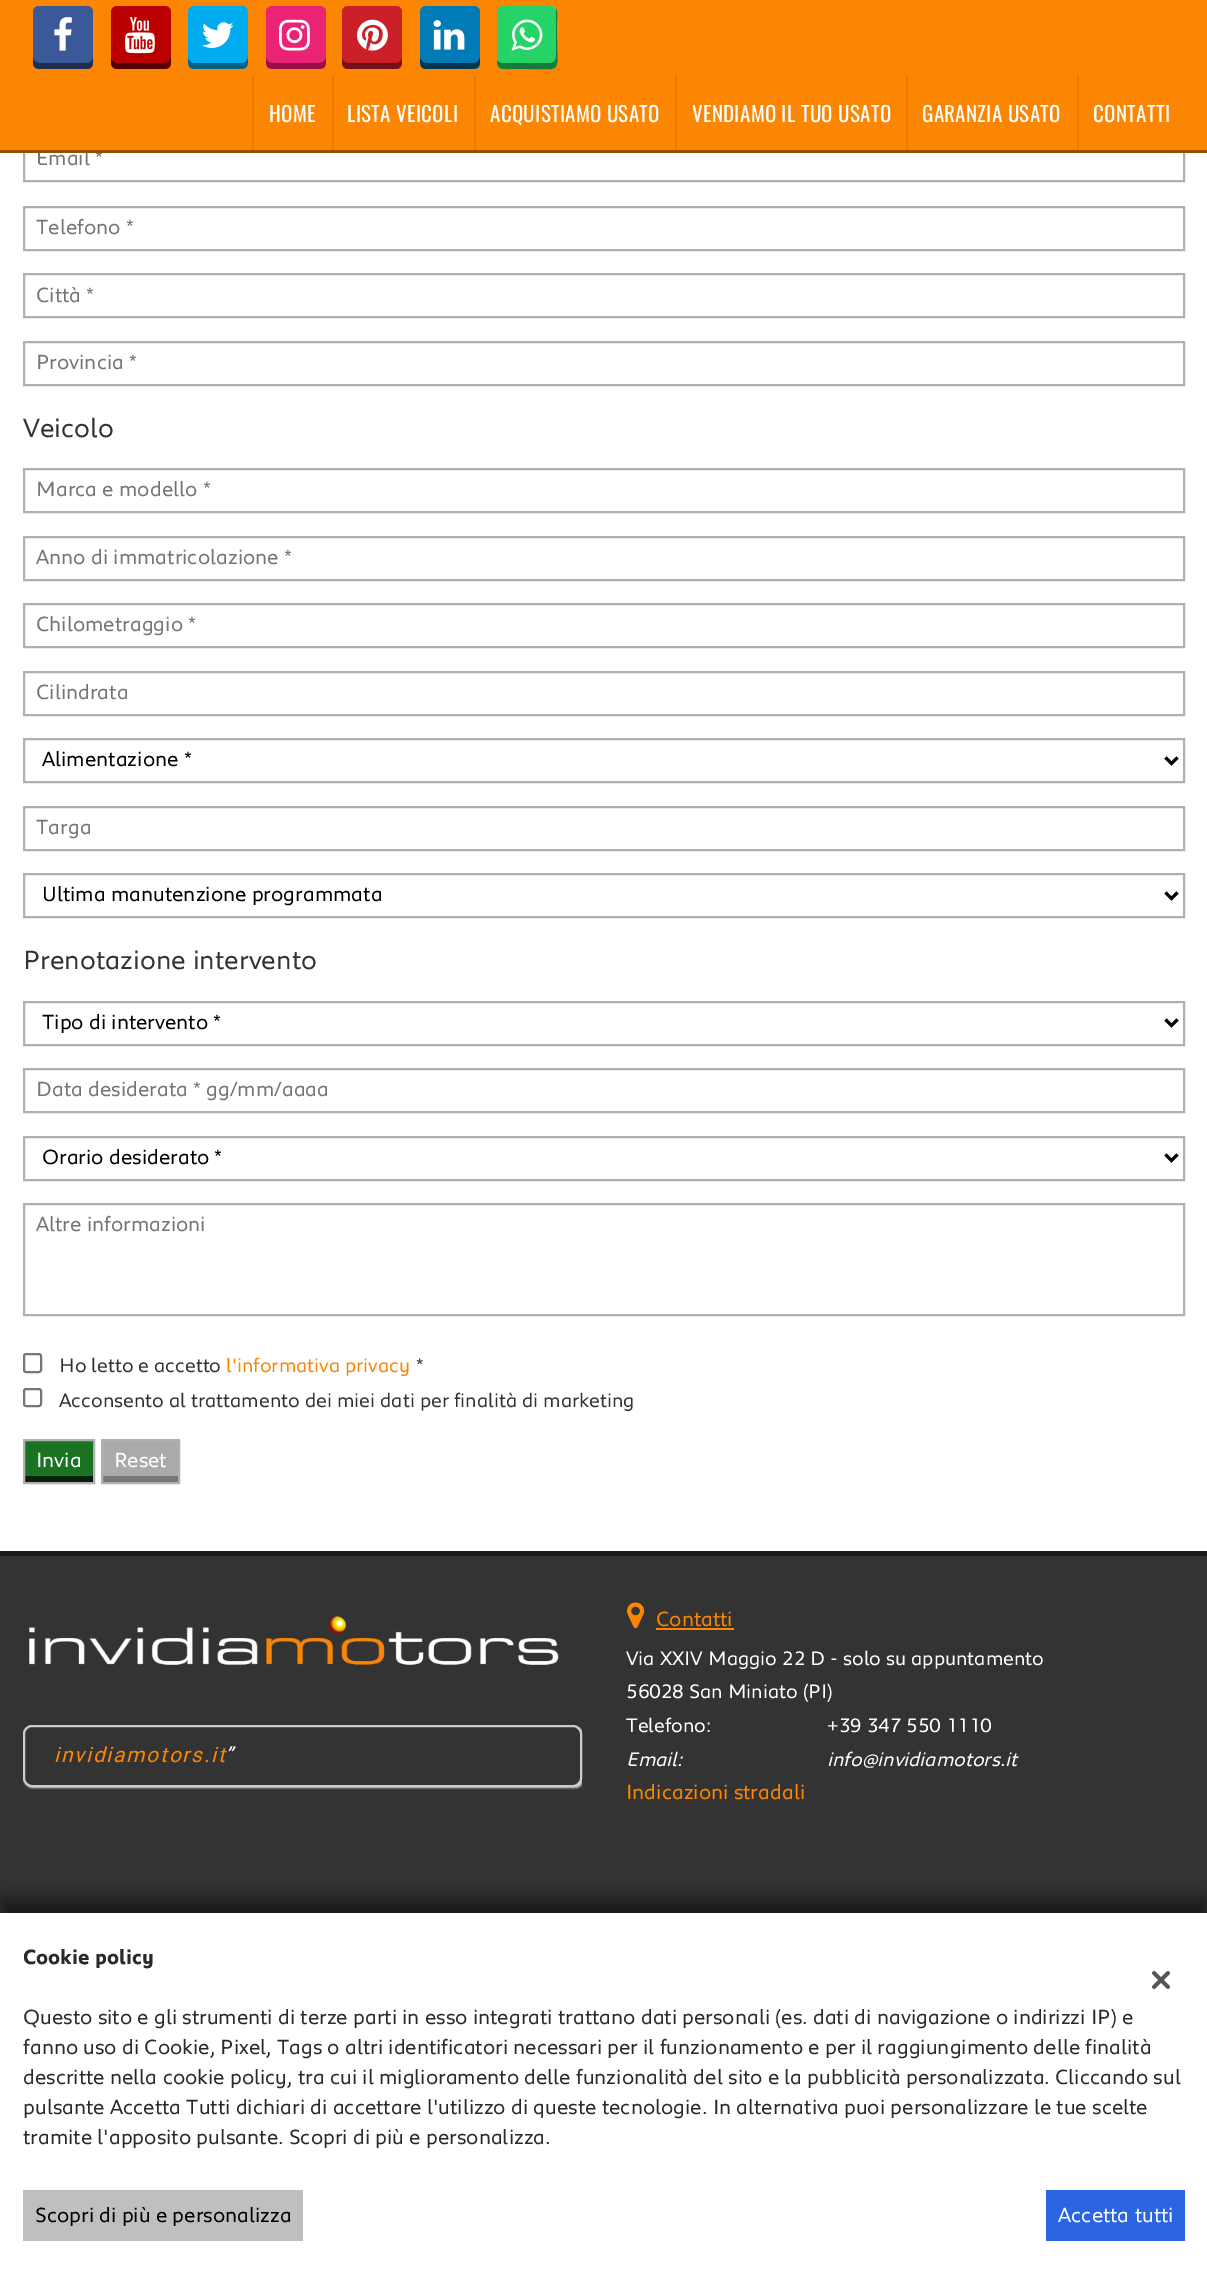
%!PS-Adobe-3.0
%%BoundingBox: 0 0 1207 2286
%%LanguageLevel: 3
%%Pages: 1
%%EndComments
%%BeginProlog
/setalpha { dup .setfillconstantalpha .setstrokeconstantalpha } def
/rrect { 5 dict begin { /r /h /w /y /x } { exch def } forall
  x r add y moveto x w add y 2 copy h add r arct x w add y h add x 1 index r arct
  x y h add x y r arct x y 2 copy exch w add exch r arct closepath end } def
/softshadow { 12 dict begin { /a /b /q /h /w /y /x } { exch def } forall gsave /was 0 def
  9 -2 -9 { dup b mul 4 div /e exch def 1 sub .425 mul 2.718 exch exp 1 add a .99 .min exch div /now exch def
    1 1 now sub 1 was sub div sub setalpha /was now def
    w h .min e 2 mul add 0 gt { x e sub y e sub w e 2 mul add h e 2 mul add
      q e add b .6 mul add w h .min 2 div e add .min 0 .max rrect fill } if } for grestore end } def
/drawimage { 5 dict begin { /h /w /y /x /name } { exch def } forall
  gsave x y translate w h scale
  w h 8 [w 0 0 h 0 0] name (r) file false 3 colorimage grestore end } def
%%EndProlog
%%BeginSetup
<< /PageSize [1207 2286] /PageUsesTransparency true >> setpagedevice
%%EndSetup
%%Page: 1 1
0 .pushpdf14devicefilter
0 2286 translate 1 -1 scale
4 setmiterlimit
1 setgray
0 0 1207 2286 rectfill
0.69 setgray
2 setlinewidth
24 138 1160 43 rectstroke
0.988 0.525 0.008 setrgbcolor
0 0 1207 150 rectfill
0.231 0.349 0.596 setrgbcolor
33 6 60 63 6 rrect fill
0.118 0.18 0.31 setrgbcolor
newpath 33 57 moveto 33 69 34 69 47 69 curveto 79 69 lineto 92 69 93 69 93 57 curveto 93 60 90 63 87 63 curveto 39 63 lineto 36 63 33 60 33 57 curveto closepath fill
(images/1.raw) 54 17 18 34 drawimage
0.733 0 0 setrgbcolor
111 6 60 63 6 rrect fill
0.333 0 0 setrgbcolor
newpath 111 57 moveto 111 69 112 69 125 69 curveto 157 69 lineto 170 69 171 69 171 57 curveto 171 60 168 63 165 63 curveto 117 63 lineto 114 63 111 60 111 57 curveto closepath fill
(images/2.raw) 125 17 30 37 drawimage
0 0.675 0.929 setrgbcolor
188 6 60 63 6 rrect fill
0 0.384 0.529 setrgbcolor
newpath 188 57 moveto 188 69 189 69 202 69 curveto 234 69 lineto 247 69 248 69 248 57 curveto 248 60 245 63 242 63 curveto 194 63 lineto 190 63 188 60 188 57 curveto closepath fill
(images/3.raw) 202 22 32 26 drawimage
0.918 0.137 0.455 setrgbcolor
266 6 60 63 6 rrect fill
0.596 0.059 0.278 setrgbcolor
newpath 266 57 moveto 266 69 267 69 280 69 curveto 312 69 lineto 325 69 326 69 326 57 curveto 326 60 323 63 320 63 curveto 272 63 lineto 268 63 266 60 266 57 curveto closepath fill
(images/4.raw) 279 19 31 32 drawimage
0.796 0.125 0.153 setrgbcolor
342 6 60 63 6 rrect fill
0.451 0.071 0.086 setrgbcolor
newpath 342 57 moveto 342 69 343 69 356 69 curveto 388 69 lineto 401 69 402 69 402 57 curveto 402 60 399 63 396 63 curveto 348 63 lineto 345 63 342 60 342 57 curveto closepath fill
(images/5.raw) 357 19 31 32 drawimage
0 0.482 0.714 setrgbcolor
420 6 60 63 6 rrect fill
0 0.212 0.314 setrgbcolor
newpath 420 57 moveto 420 69 421 69 434 69 curveto 466 69 lineto 479 69 480 69 480 57 curveto 480 60 477 63 474 63 curveto 426 63 lineto 423 63 420 60 420 57 curveto closepath fill
(images/6.raw) 433 20 32 30 drawimage
0.145 0.827 0.4 setrgbcolor
497 6 60 63 6 rrect fill
0.086 0.486 0.235 setrgbcolor
newpath 497 60 moveto 497 70 502 69 511 69 curveto 527 69 lineto 563 69 557 74 557 38 curveto 557 20 lineto 557 18 558 12 556 9 curveto 556 57 lineto 556 60 554 63 550 63 curveto 502 63 lineto 500 63 498 62 497 60 curveto closepath fill
(images/7.raw) 511 19 32 32 drawimage
0.91 0.482 0.008 setrgbcolor
252 75 2 75 rectfill
332 75 2 75 rectfill
474 75 2 75 rectfill
675 75 2 75 rectfill
906 75 2 75 rectfill
1077 75 2 75 rectfill
0.69 setgray
24 207 1160 43 rectstroke
24 274 1160 43 rectstroke
24 342 1160 43 rectstroke
24 469 1160 43 rectstroke
24 537 1160 43 rectstroke
24 604 1160 43 rectstroke
24 672 1160 43 rectstroke
24 739 1160 43 rectstroke
0 setgray
3 setlinewidth
newpath 1165.5 757.5 moveto 1171.5 763.5 lineto 1177.5 757.5 lineto stroke
0.69 setgray
2 setlinewidth
24 807 1160 43 rectstroke
24 874 1160 43 rectstroke
0 setgray
3 setlinewidth
newpath 1165.5 892.5 moveto 1171.5 898.5 lineto 1177.5 892.5 lineto stroke
0.69 setgray
2 setlinewidth
24 1002 1160 43 rectstroke
0 setgray
3 setlinewidth
newpath 1165.5 1019.5 moveto 1171.5 1025.5 lineto 1177.5 1019.5 lineto stroke
0.69 setgray
2 setlinewidth
24 1069 1160 43 rectstroke
24 1137 1160 43 rectstroke
0 setgray
3 setlinewidth
newpath 1165.5 1154.5 moveto 1171.5 1160.5 lineto 1177.5 1154.5 lineto stroke
0.69 setgray
2 setlinewidth
24 1204 1160 111 rectstroke
0.463 setgray
24 1354 17 18 2 rrect stroke
24 1389 17 17 2 rrect stroke
0.102 0.451 0.137 setrgbcolor
25 1441 68 35 rectfill
0.027 0.125 0.039 setrgbcolor
24 1476 69 6 rectfill
0.69 setgray
24 1440 70 43 rectstroke
0.667 setgray
103 1441 75 35 rectfill
0.467 setgray
102 1476 77 6 rectfill
0.69 setgray
102 1440 77 43 rectstroke
0.2 setgray
0 1556 1207 357 rectfill
0.102 setgray
0 1551 1207 5 rectfill
(images/8.raw) 29 1616 530 49 drawimage
gsave
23 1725 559 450 rectclip
newpath 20 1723 moveto 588 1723 lineto 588 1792 lineto 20 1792 lineto closepath 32 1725 moveto 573 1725 lineto 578 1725 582 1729 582 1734 curveto 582 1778 lineto 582 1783 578 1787 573 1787 curveto 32 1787 lineto 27 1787 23 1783 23 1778 curveto 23 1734 lineto 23 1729 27 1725 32 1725 curveto closepath eoclip newpath
0.8 setgray
24 1727 560 61 9 1 1 softshadow
grestore
0.8 setgray
24 1726 557 60 8 rrect stroke
(images/9.raw) 627 1602 18 27 drawimage
0.988 0.525 0.008 setrgbcolor
656 1628 78 2 rectfill
0 setgray
0 1898 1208 373 0 9 0.5 softshadow
1 setgray
0 1913 1207 373 rectfill
0.749 setgray
23 2190 280 51 rectfill
0.173 0.396 0.882 setrgbcolor
1046 2190 139 51 rectfill
(images/10.raw) 1152 1971 18 18 drawimage
/Oswald-Regular [21 0 0 -21 0 0] selectfont
1 setgray
269 122 moveto 0.3 0 (HOME) ashow
347 122 moveto 0.3 0 (LISTA VEICOLI) ashow
490 122 moveto 0.3 0 (ACQUISTIAMO USATO) ashow
692 122 moveto 0.3 0 (VENDIAMO IL TUO USATO) ashow
922 122 moveto 0.3 0 (GARANZIA USATO) ashow
1093 122 moveto 0.3 0 (CONTATTI) ashow
/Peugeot-Regular [21 0 0 -21 0 0] selectfont
0.459 setgray
36 165 moveto (Email *) show
0.592 0.314 0.004 setrgbcolor
newpath 0 150 moveto 0 153 lineto 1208 153 lineto 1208 3 lineto 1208 150 lineto closepath fill
0.459 setgray
36 234 moveto (Telefono *) show
36 302 moveto (Città *) show
36 369 moveto (Provincia *) show
/Peugeot-Regular [27 0 0 -27 0 0] selectfont
0.2 setgray
23 437 moveto (Veicolo) show
/Peugeot-Regular [21 0 0 -21 0 0] selectfont
0.459 setgray
36 496 moveto (Marca e modello *) show
36 564 moveto (Anno di immatricolazione *) show
36 631 moveto (Chilometraggio *) show
36 699 moveto (Cilindrata) show
0 setgray
42 766 moveto (Alimentazione *) show
0.459 setgray
36 834 moveto (Targa) show
0 setgray
42 901 moveto (Ultima manutenzione programmata) show
/Peugeot-Regular [27 0 0 -27 0 0] selectfont
0.2 setgray
23 969 moveto (Prenotazione intervento) show
/Peugeot-Regular [21 0 0 -21 0 0] selectfont
0 setgray
42 1029 moveto (Tipo di intervento *) show
0.459 setgray
36 1096 moveto (Data desiderata * gg/mm/aaaa) show
0 setgray
42 1164 moveto (Orario desiderato *) show
0.459 setgray
36 1231 moveto (Altre informazioni) show
/Peugeot-Regular [19.95 0 0 -19.95 0 0] selectfont
0.2 setgray
59 1372 moveto (Ho letto e accetto) show
0.988 0.525 0.008 setrgbcolor
226 1372 moveto (l'informativa privacy) show
0.2 setgray
416 1372 moveto (*) show
59 1407 moveto (Acconsento al trattamento dei miei dati per finalità di marketing) show
/Peugeot-Regular [21 0 0 -21 0 0] selectfont
1 setgray
36 1467 moveto (Invia) show
114 1467 moveto (Reset) show
/Roboto-Italic [21 0 0 -21 0 0] selectfont
0.988 0.525 0.008 setrgbcolor
54 1762 moveto 1.7 0 (invidiamotors.it) ashow
1 setgray
225 1762 moveto 1.7 0 (”) ashow
/Peugeot-Regular [21 0 0 -21 0 0] selectfont
0.988 0.525 0.008 setrgbcolor
656 1626 moveto (Contatti) show
/Peugeot-Regular [19.95 0 0 -19.95 0 0] selectfont
1 setgray
626 1665 moveto (Via XXIV Maggio 22 D - solo su appuntamento) show
626 1698 moveto (56028 San Miniato \(PI\)) show
626 1732 moveto (Telefono:) show
827 1732 moveto (+39 347 550 1110) show
/Peugeot-Italic [19.95 0 0 -19.95 0 0] selectfont
626 1766 moveto (Email:) show
827 1766 moveto (info@invidiamotors.it) show
/Peugeot-Regular [21 0 0 -21 0 0] selectfont
0.988 0.525 0.008 setrgbcolor
626 1799 moveto (Indicazioni stradali) show
/Peugeot-Bold [21 0 0 -21 0 0] selectfont
0.169 0.161 0.161 setrgbcolor
23 1964 moveto (Cookie policy) show
/Peugeot-Regular [21 0 0 -21 0 0] selectfont
23 2024 moveto (Questo sito e gli strumenti di terze parti in esso integrati trattano dati personali \(es. dati di navigazione o indirizzi IP\) e) show
23 2054 moveto (fanno uso di Cookie, Pixel, Tags o altri identificatori necessari per il funzionamento e per il raggiungimento delle finalità) show
23 2084 moveto (descritte nella cookie policy, tra cui il miglioramento delle funzionalità del sito e la pubblicità personalizzata. Cliccando sul) show
23 2114 moveto (pulsante Accetta Tutti dichiari di accettare l'utilizzo di queste tecnologie. In alternativa puoi personalizzare le tue scelte) show
23 2144 moveto (tramite l'apposito pulsante. Scopri di più e personalizza.) show
0 setgray
35 2222 moveto (Scopri di più e personalizza) show
1 setgray
1058 2222 moveto (Accetta tutti) show
.poppdf14devicefilter showpage
%%EOF
